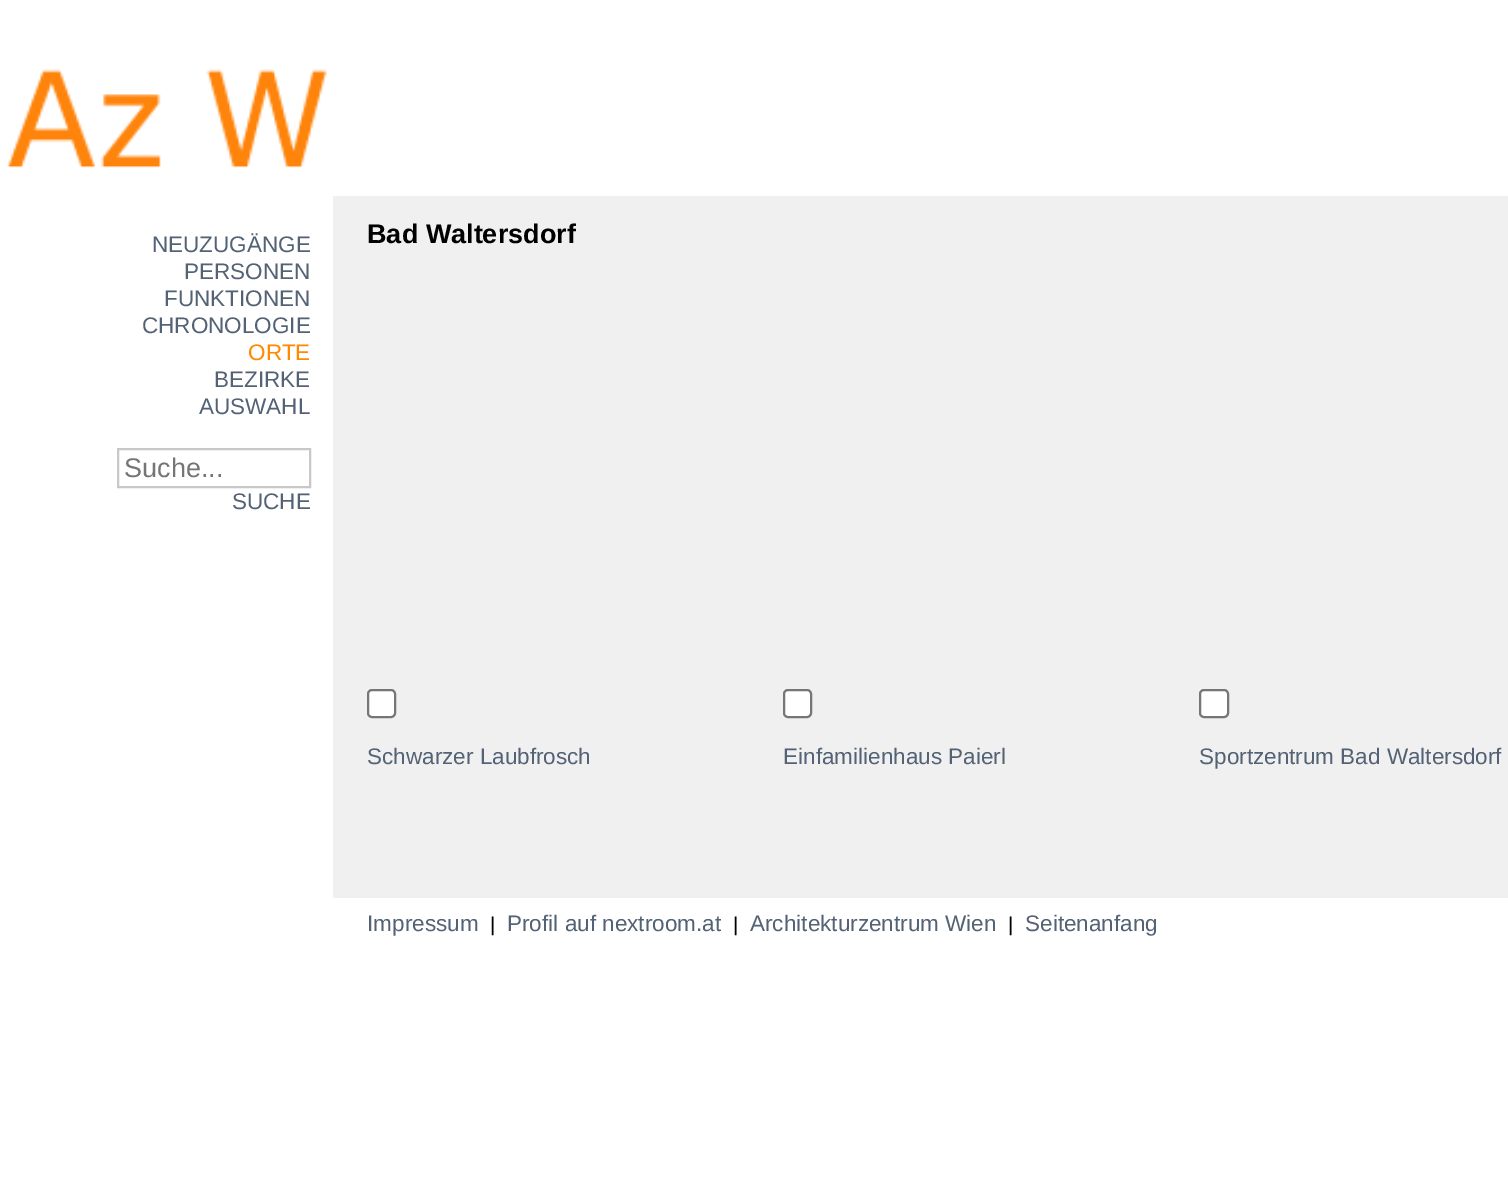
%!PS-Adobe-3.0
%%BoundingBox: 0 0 1508 1197
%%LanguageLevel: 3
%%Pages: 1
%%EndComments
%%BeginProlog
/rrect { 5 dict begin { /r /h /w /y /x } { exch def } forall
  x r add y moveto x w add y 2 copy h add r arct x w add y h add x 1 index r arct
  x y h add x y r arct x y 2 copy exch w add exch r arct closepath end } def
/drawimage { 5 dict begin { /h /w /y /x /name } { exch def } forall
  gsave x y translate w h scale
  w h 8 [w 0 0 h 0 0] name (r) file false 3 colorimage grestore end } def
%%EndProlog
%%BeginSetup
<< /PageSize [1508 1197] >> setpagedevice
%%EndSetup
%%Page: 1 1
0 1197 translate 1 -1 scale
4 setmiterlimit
1 setgray
0 0 1508 1197 rectfill
(images/1.raw) 6 69 321 99 drawimage
0.784 setgray
2 setlinewidth
118 449 192 38 rectstroke
0.941 setgray
333 196 1175 702 rectfill
1 setgray
368 690 27 27 4 rrect gsave fill grestore
0.463 setgray
stroke
1 setgray
784 690 27 27 4 rrect gsave fill grestore
0.463 setgray
stroke
1 setgray
1200 690 28 27 4 rrect gsave fill grestore
0.463 setgray
stroke
/LiberationSans-Regular [22.5 0 0 -22.5 0 0] selectfont
0.329 0.384 0.459 setrgbcolor
152 252 moveto (NEUZUGÄNGE) show
184 279 moveto (PERSONEN) show
164 306 moveto (FUNKTIONEN) show
142 333 moveto (CHRONOLOGIE) show
1 0.537 0 setrgbcolor
248 360 moveto (ORTE) show
0.329 0.384 0.459 setrgbcolor
214 387 moveto (BEZIRKE) show
199 414 moveto (AUSWAHL) show
/LiberationSans-Regular [27 0 0 -27 0 0] selectfont
0.459 setgray
124 477 moveto (Suche...) show
/LiberationSans-Regular [22.5 0 0 -22.5 0 0] selectfont
0.329 0.384 0.459 setrgbcolor
232 509 moveto (SUCHE) show
/LiberationSans-Bold [27 0 0 -27 0 0] selectfont
0 setgray
367 243 moveto (Bad Waltersdorf) show
/LiberationSans-Regular [22.5 0 0 -22.5 0 0] selectfont
0.329 0.384 0.459 setrgbcolor
367 764 moveto (Schwarzer Laubfrosch) show
783 764 moveto (Einfamilienhaus Paierl) show
1199 764 moveto (Sportzentrum Bad Waltersdorf) show
367 931 moveto (Impressum) show
/LiberationSans-Regular [20 0 0 -20 0 0] selectfont
0 setgray
490 931 moveto (|) show
/LiberationSans-Regular [22.5 0 0 -22.5 0 0] selectfont
0.329 0.384 0.459 setrgbcolor
507 931 moveto (Profil auf nextroom.at) show
/LiberationSans-Regular [20 0 0 -20 0 0] selectfont
0 setgray
733 931 moveto (|) show
/LiberationSans-Regular [22.5 0 0 -22.5 0 0] selectfont
0.329 0.384 0.459 setrgbcolor
750 931 moveto (Architekturzentrum Wien) show
/LiberationSans-Regular [20 0 0 -20 0 0] selectfont
0 setgray
1008 931 moveto (|) show
/LiberationSans-Regular [22.5 0 0 -22.5 0 0] selectfont
0.329 0.384 0.459 setrgbcolor
1025 931 moveto (Seitenanfang) show
showpage
%%EOF
